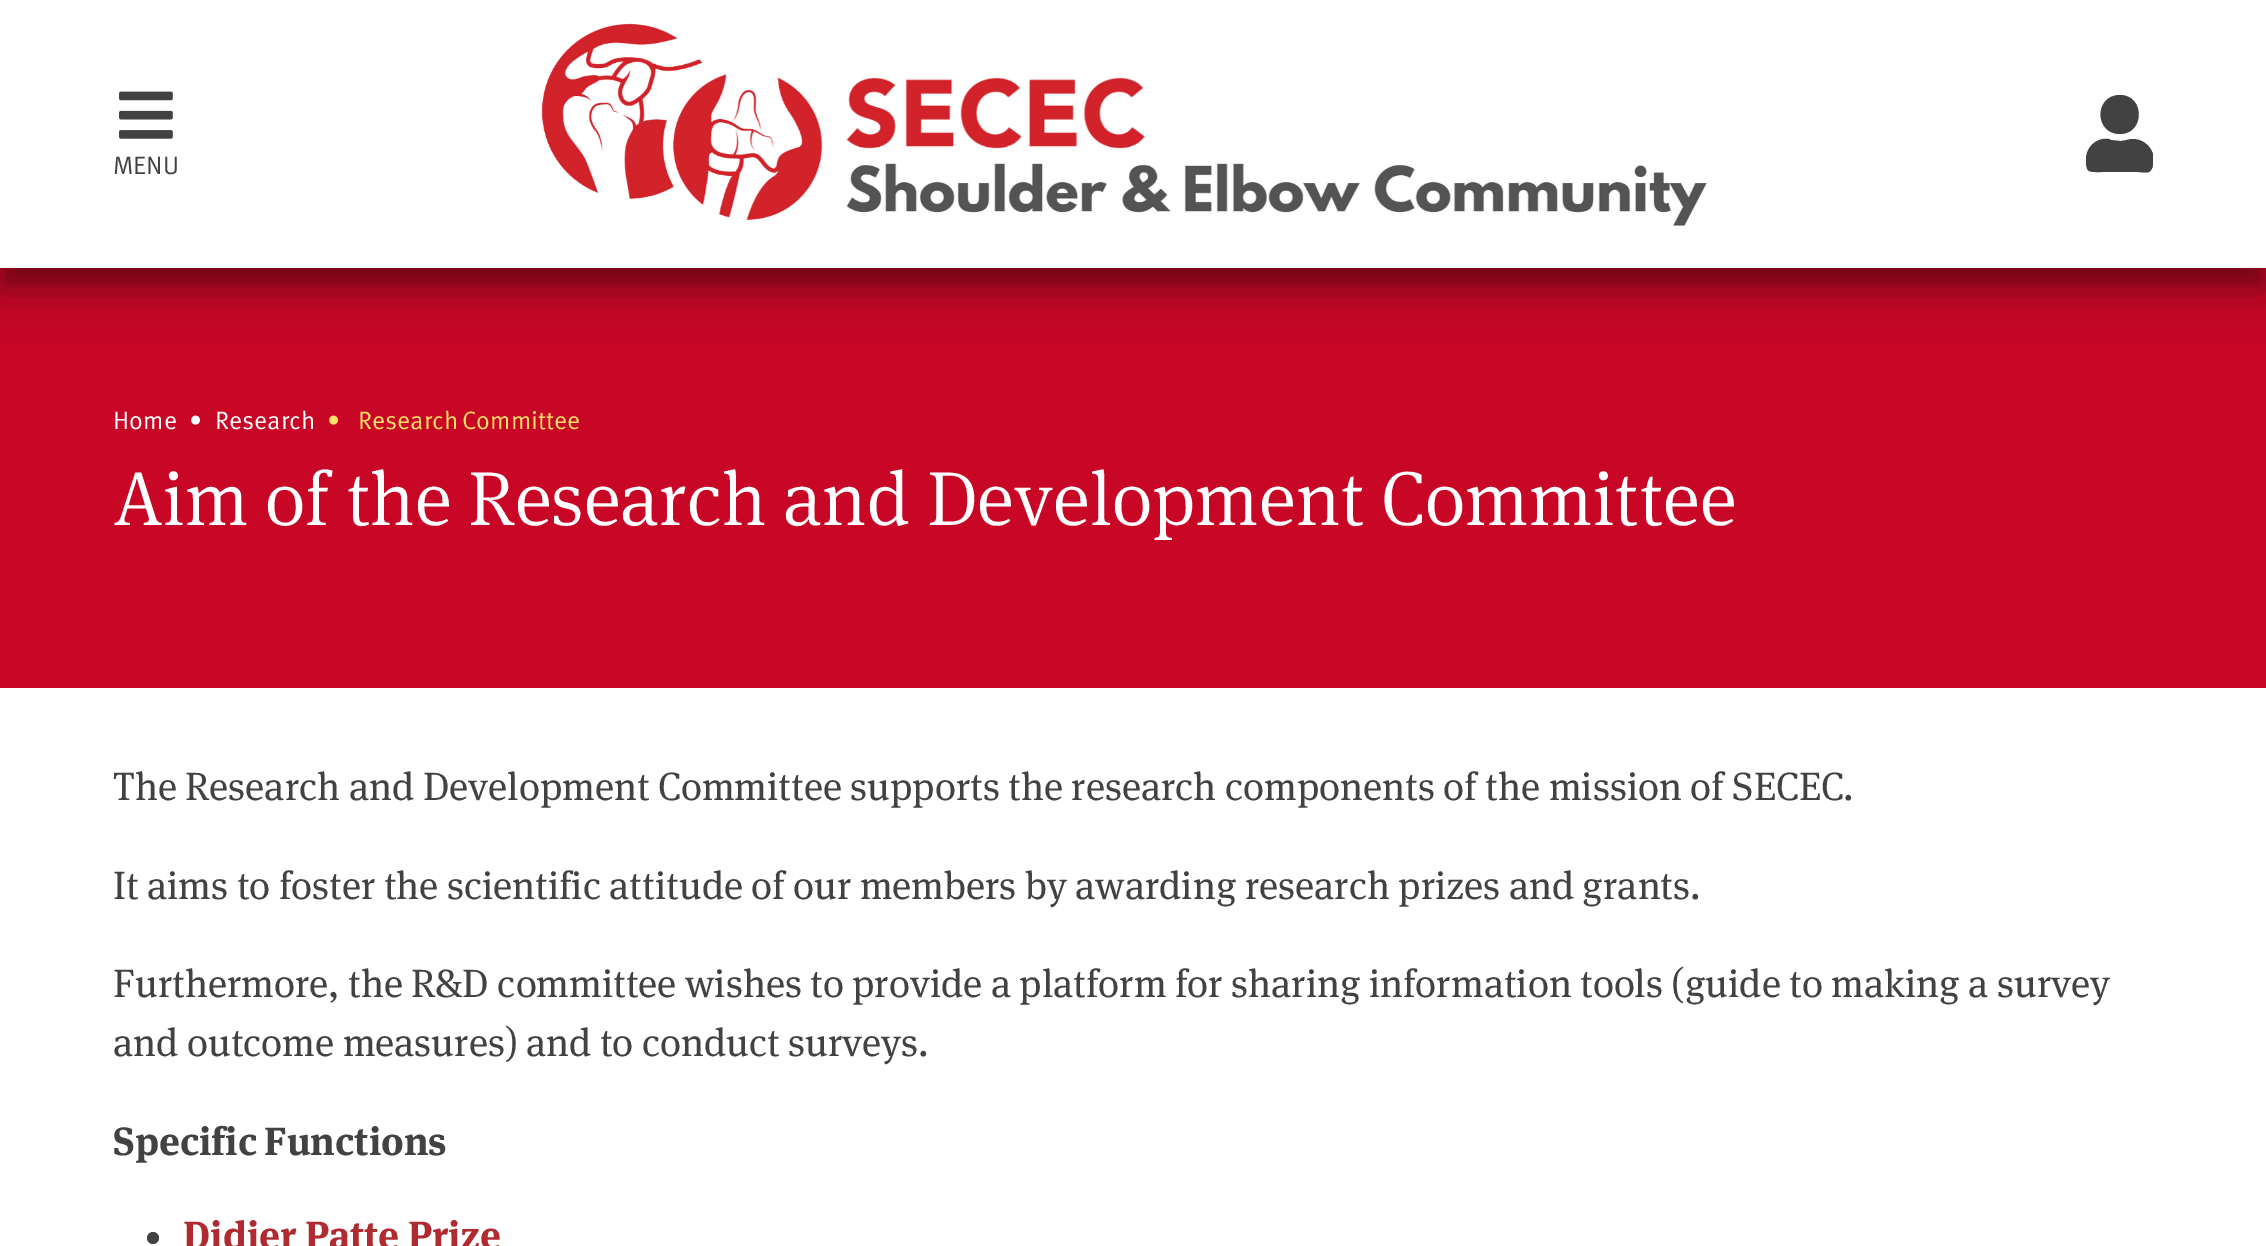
%!PS-Adobe-3.0
%%BoundingBox: 0 0 2266 1246
%%LanguageLevel: 3
%%Pages: 1
%%EndComments
%%BeginProlog
/setalpha { dup .setfillconstantalpha .setstrokeconstantalpha } def
/rrect { 5 dict begin { /r /h /w /y /x } { exch def } forall
  x r add y moveto x w add y 2 copy h add r arct x w add y h add x 1 index r arct
  x y h add x y r arct x y 2 copy exch w add exch r arct closepath end } def
/softshadow { 12 dict begin { /a /b /q /h /w /y /x } { exch def } forall gsave /was 0 def
  9 -2 -9 { dup b mul 4 div /e exch def 1 sub .425 mul 2.718 exch exp 1 add a .99 .min exch div /now exch def
    1 1 now sub 1 was sub div sub setalpha /was now def
    w h .min e 2 mul add 0 gt { x e sub y e sub w e 2 mul add h e 2 mul add
      q e add b .6 mul add w h .min 2 div e add .min 0 .max rrect fill } if } for grestore end } def
/drawimage { 5 dict begin { /h /w /y /x /name } { exch def } forall
  gsave x y translate w h scale
  w h 8 [w 0 0 h 0 0] name (r) file false 3 colorimage grestore end } def
%%EndProlog
%%BeginSetup
<< /PageSize [2266 1246] /PageUsesTransparency true >> setpagedevice
%%EndSetup
%%Page: 1 1
0 .pushpdf14devicefilter
0 1246 translate 1 -1 scale
4 setmiterlimit
1 setgray
0 0 2266 1246 rectfill
0.784 0.024 0.149 setrgbcolor
0 268 2266 420 rectfill
0 setgray
0 18 2266 267 0 9 0.22 softshadow
0 25 2266 267 0 24.5 0.25 softshadow
1 setgray
0 0 2266 268 rectfill
(images/1.raw) 119 91 54 48 drawimage
(images/2.raw) 541 23 1166 203 drawimage
0.259 setgray
newpath 2120 134 moveto 2145 134 2145 95 2120 95 curveto 2094 95 2094 134 2120 134 curveto closepath 2133 139 moveto 2129 139 2124 141 2120 141 curveto 2111 140 lineto 2109 139 lineto 2097 137 2086 147 2086 159 curveto 2086 173 2088 172 2102 172 curveto 2137 172 lineto 2140 172 2146 173 2149 172 curveto 2153 169 2153 166 2153 162 curveto 2153 154 lineto 2150 145 2142 139 2133 139 curveto closepath fill
newpath 153 1238 6 0 360 arc closepath fill
/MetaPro-Regular [25.25 0 0 -25.25 0 0] selectfont
113 174 moveto (MENU) show
1 setgray
113 429 moveto (Home) show
189 429 moveto (•) show
215 429 moveto (Research) show
1 0.878 0.4 setrgbcolor
327 429 moveto (•) show
358 429 moveto -2 0 32 (Research Committee) widthshow
/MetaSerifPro-Light [76.9 0 0 -76.9 0 0] selectfont
1 setgray
113 525 moveto -0.75 0 32 (Aim of the Research and Development Committee) widthshow
/MetaSerifPro-Regular [39.38 0 0 -39.38 0 0] selectfont
0.259 setgray
113 800 moveto -0.25 0 32 (The Research and Development Committee supports the research components of the mission of SECEC.) widthshow
113 899 moveto -0.4 0 32 (It aims to foster the scientific attitude of our members by awarding research prizes and grants.) widthshow
113 997 moveto -0.4 0 32 (Furthermore, the R&D committee wishes to provide a platform for sharing information tools \(guide to making a survey) widthshow
113 1056 moveto -0.5 0 32 (and outcome measures\) and to conduct surveys.) widthshow
/MetaSerifPro-Bold [39.38 0 0 -39.38 0 0] selectfont
113 1155 moveto -2 0 32 (Specific Functions) widthshow
0.686 0.169 0.192 setrgbcolor
183 1249 moveto (Didier Patte Prize) show
.poppdf14devicefilter showpage
%%EOF
